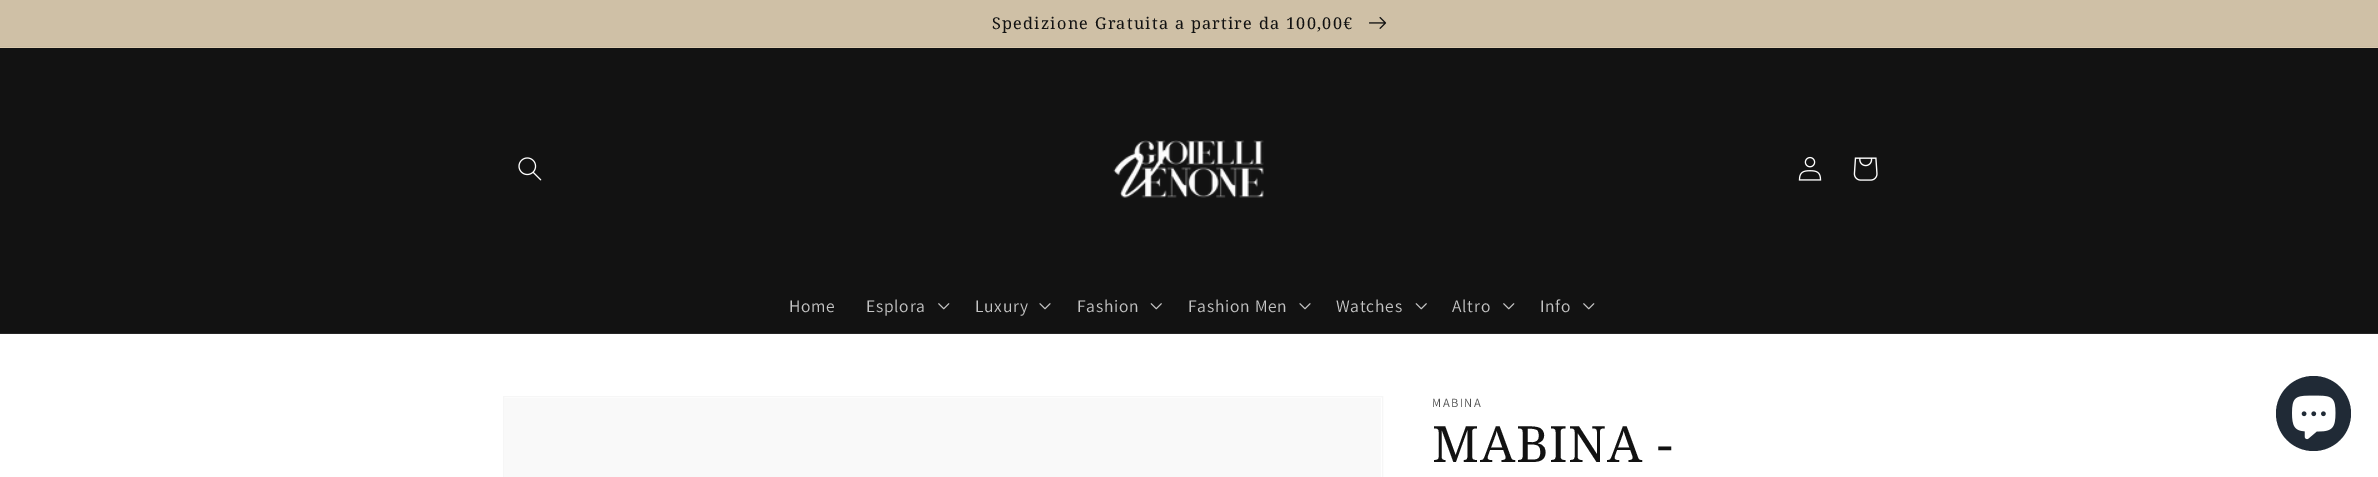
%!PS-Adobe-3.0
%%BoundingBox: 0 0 2378 477
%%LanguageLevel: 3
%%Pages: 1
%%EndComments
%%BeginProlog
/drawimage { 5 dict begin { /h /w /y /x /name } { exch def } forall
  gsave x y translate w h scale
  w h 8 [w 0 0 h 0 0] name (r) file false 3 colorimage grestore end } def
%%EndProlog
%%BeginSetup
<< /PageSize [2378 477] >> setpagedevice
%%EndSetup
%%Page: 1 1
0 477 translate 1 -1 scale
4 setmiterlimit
1 setgray
0 0 2378 477 rectfill
0.859 0.796 0.686 setrgbcolor
0 47 2378 1 rectfill
0.796 0.737 0.635 setrgbcolor
0 46 2378 1 rectfill
0.812 0.753 0.651 setrgbcolor
0 0 2378 46 rectfill
(images/1.raw) 1369 16 18 13 drawimage
0.071 setgray
0 48 2378 285 rectfill
0.145 setgray
0 333 2378 1 rectfill
(images/2.raw) 518 157 24 24 drawimage
(images/3.raw) 1113 140 151 58 drawimage
(images/4.raw) 1798 156 24 25 drawimage
(images/5.raw) 1853 157 25 24 drawimage
(images/6.raw) 938 303 12 7 drawimage
(images/7.raw) 1039 303 12 7 drawimage
(images/8.raw) 1150 303 12 7 drawimage
(images/7.raw) 1299 303 12 7 drawimage
(images/8.raw) 1415 303 12 7 drawimage
(images/6.raw) 1503 303 12 7 drawimage
(images/6.raw) 1583 303 12 7 drawimage
0.965 setgray
503.5 396.5 879 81 rectstroke
0.976 setgray
504 398 877 79 rectfill
0.125 0.165 0.212 setrgbcolor
newpath 2313.5 413.5 37.5 0 360 arc closepath fill
(images/9.raw) 2292 395 44 45 drawimage
/NotoSerif-Regular [16.25 0 0 -16.25 0 0] selectfont
0.071 setgray
992 29 moveto 1.25 0 (Spedizione Gratuita a partire da 100,00€) ashow
/Assistant-Regular [17.5 0 0 -17.5 0 0] selectfont
0.769 setgray
789 312 moveto 0.75 0 (Home) ashow
866 312 moveto 0.75 0 (Esplora) ashow
975 312 moveto 0.75 0 (Luxury) ashow
1077 312 moveto 0.75 0 (Fashion) ashow
1188 312 moveto 0.75 0 (Fashion Men) ashow
1336 312 moveto 0.75 0 (Watches) ashow
1452 312 moveto 0.75 0 (Altro) ashow
1540 312 moveto 0.75 0 (Info) ashow
/Assistant-Regular [12.5 0 0 -12.5 0 0] selectfont
0.302 setgray
1432 407 moveto 1.5 0 (MABINA) ashow
/NotoSerif-Regular [50 0 0 -50 0 0] selectfont
0.071 setgray
1432 462 moveto 0.75 0 (MABINA -) ashow
showpage
%%EOF
